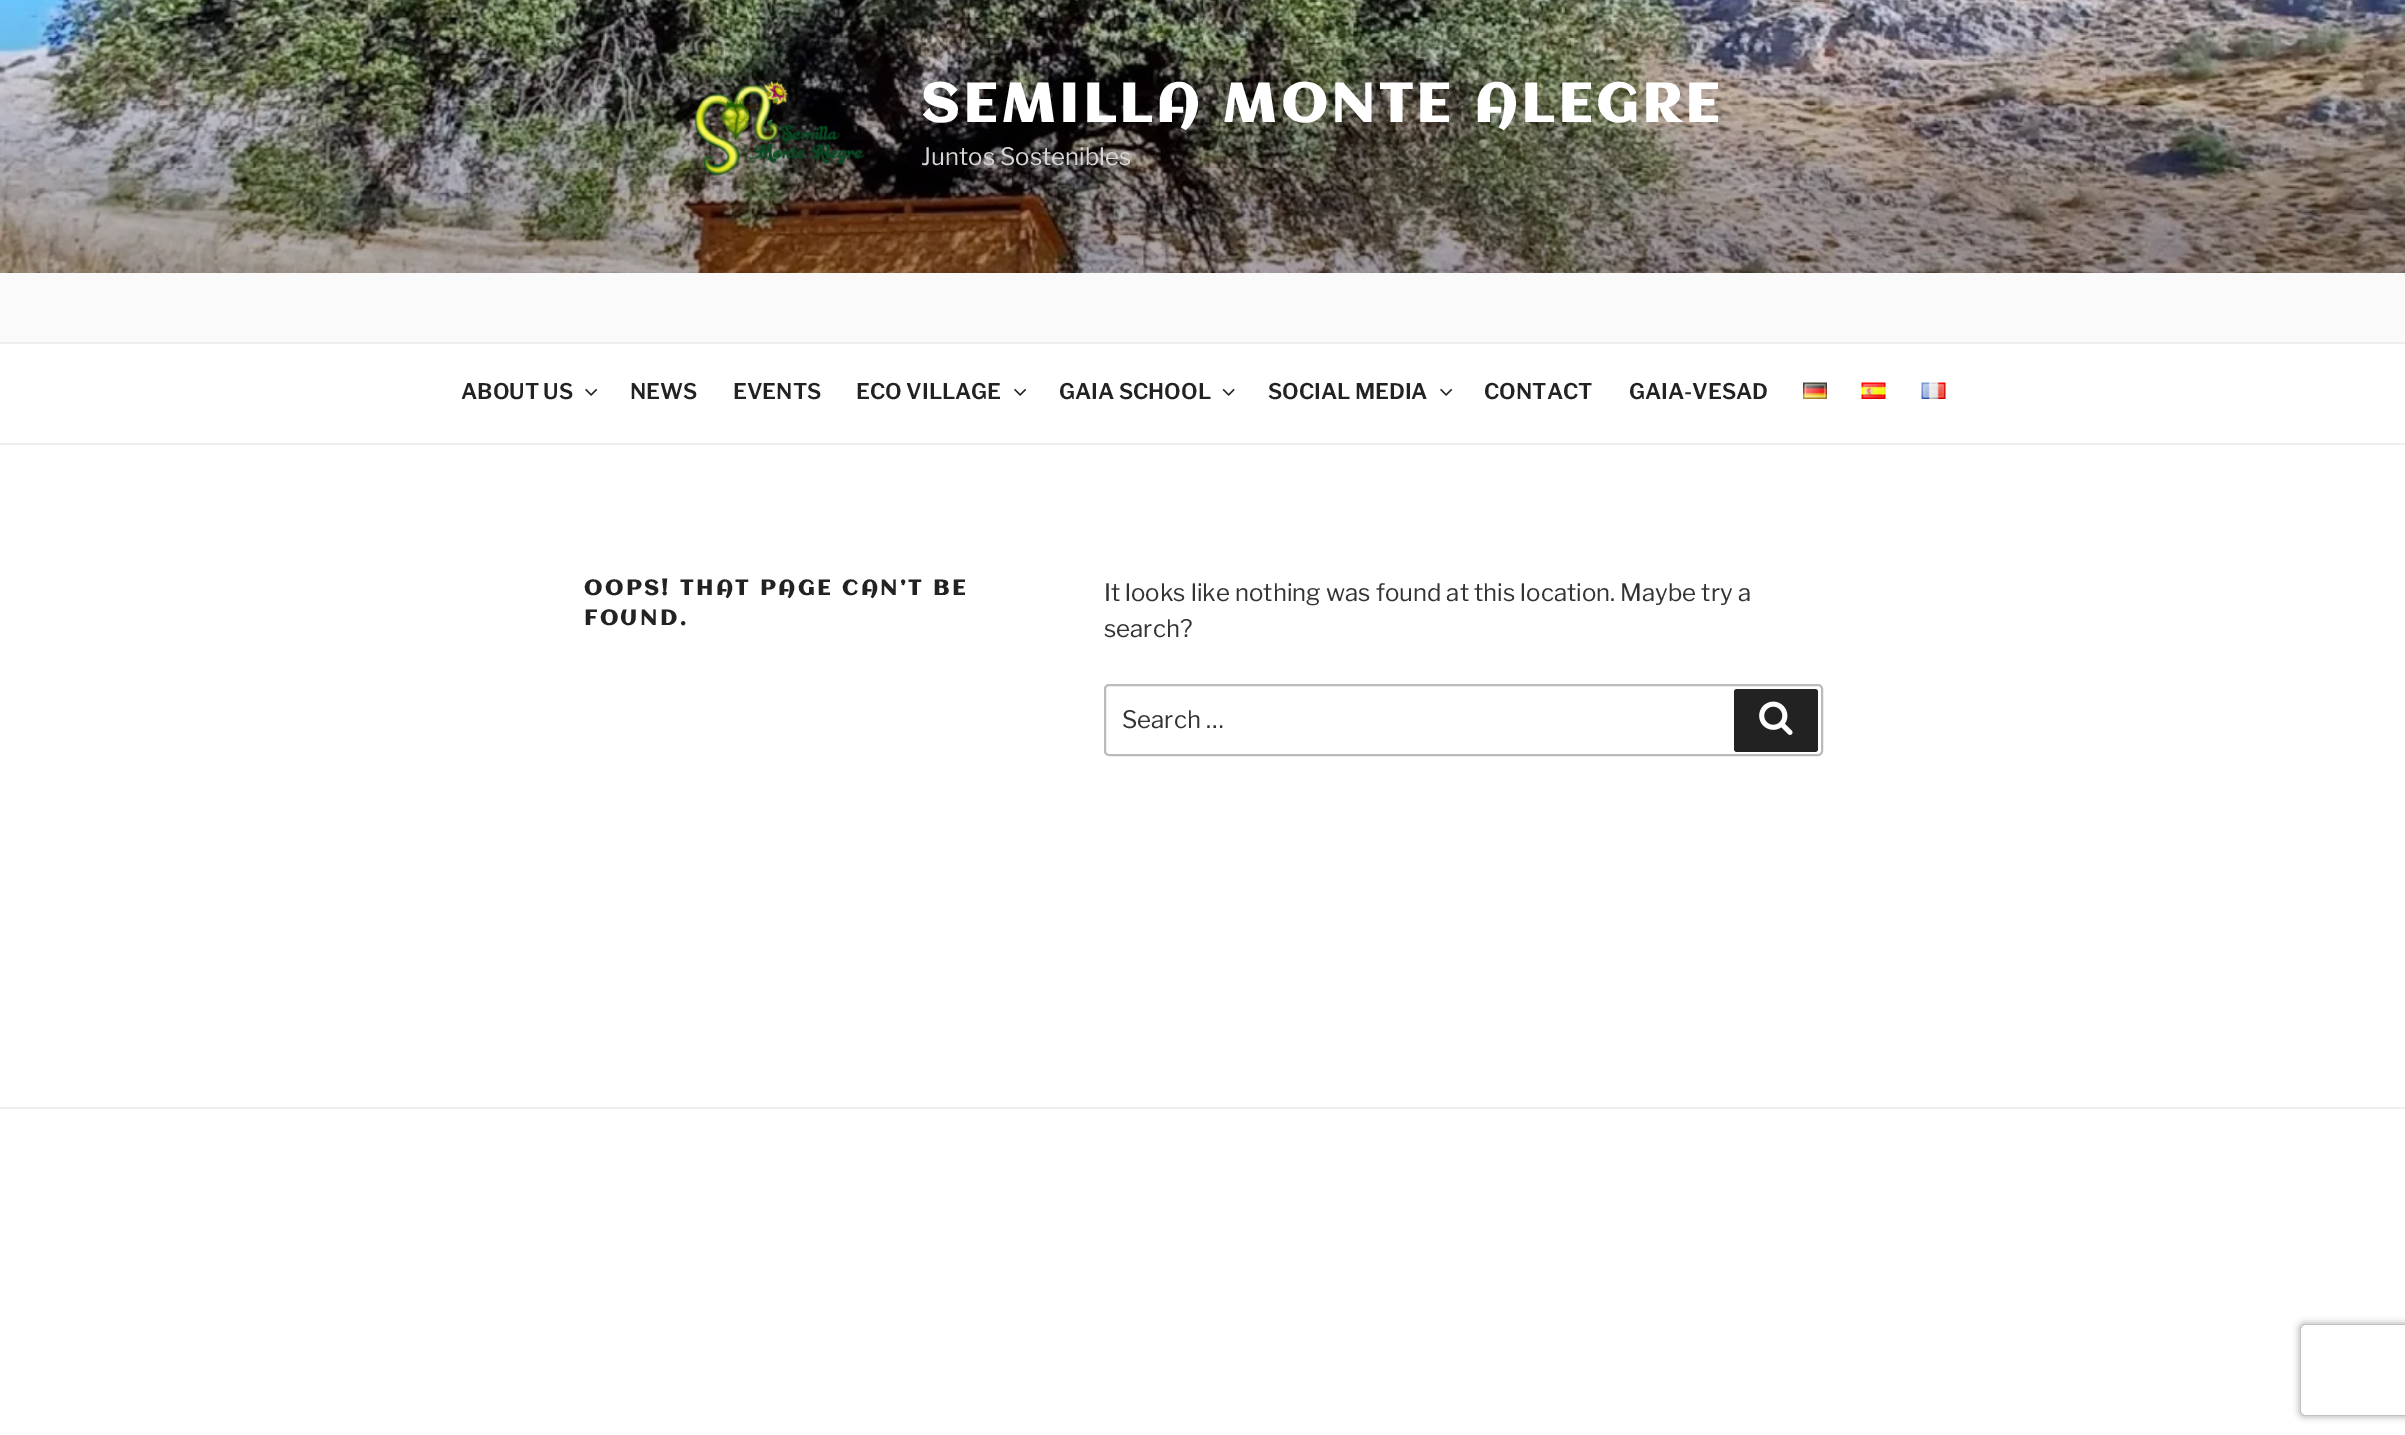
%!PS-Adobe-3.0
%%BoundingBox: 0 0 2405 1435
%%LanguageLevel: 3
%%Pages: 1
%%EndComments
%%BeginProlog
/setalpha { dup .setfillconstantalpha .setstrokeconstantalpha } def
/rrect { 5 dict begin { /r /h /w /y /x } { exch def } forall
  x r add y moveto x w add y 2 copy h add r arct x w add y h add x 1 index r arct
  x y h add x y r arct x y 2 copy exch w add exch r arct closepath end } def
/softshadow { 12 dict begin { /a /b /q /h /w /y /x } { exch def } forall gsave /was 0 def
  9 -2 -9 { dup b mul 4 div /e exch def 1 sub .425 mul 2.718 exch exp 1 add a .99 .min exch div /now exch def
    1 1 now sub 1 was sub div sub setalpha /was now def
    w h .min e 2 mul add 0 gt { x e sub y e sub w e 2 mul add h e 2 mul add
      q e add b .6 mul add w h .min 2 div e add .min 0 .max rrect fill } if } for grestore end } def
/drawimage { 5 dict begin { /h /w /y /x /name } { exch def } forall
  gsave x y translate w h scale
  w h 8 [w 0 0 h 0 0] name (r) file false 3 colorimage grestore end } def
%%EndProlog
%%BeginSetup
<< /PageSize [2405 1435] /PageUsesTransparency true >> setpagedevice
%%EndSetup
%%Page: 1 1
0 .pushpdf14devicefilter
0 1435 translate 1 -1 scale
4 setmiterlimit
1 setgray
0 0 2405 1435 rectfill
0.98 setgray
0 273 2405 69 rectfill
(images/1.raw) 0 0 2405 273 drawimage
(images/2.raw) 694 81 171 96 drawimage
0.933 setgray
0 342 2405 2 rectfill
0 443 2405 2 rectfill
(images/3.raw) 585 388 13 8 drawimage
(images/3.raw) 1014 388 13 8 drawimage
(images/4.raw) 1222 388 13 8 drawimage
(images/3.raw) 1440 388 13 8 drawimage
(images/5.raw) 1803 382 24 17 drawimage
(images/6.raw) 1861 382 25 17 drawimage
(images/7.raw) 1921 382 25 17 drawimage
0.733 setgray
2 setlinewidth
1105 685 717 70 4 rrect stroke
0.133 setgray
1734 689 84 63 3 rrect fill
(images/8.raw) 1759 701 34 34 drawimage
0.933 setgray
0 1107 2405 2 rectfill
gsave
newpath 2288 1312 moveto 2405 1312 lineto 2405 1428 lineto 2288 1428 lineto closepath 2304 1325 moveto 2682 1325 lineto 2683.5 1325 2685 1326.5 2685 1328 curveto 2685 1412 lineto 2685 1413.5 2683.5 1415 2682 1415 curveto 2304 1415 lineto 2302.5 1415 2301 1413.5 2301 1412 curveto 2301 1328 lineto 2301 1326.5 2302.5 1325 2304 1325 curveto closepath eoclip newpath
0.502 setgray
2301 1325 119 90 3 4 1 softshadow
grestore
/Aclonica-Bold [54 0 0 -54 0 0] selectfont
1 setgray
921 122 moveto 4.3 0 (SEMILLA MONTE ALEGRE) ashow
/LibreFranklin-Thin [24 0 0 -24 0 0] selectfont
0.843 0.839 0.839 setrgbcolor
921 165 moveto (Juntos Sostenibles) show
/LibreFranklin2-Thin [21.5 0 0 -21.5 0 0] selectfont
0.133 setgray
461 399 moveto (ABOUT US) show
630 399 moveto (NEWS) show
733 399 moveto (EVENTS) show
856 399 moveto (ECO VILLAGE) show
1059 399 moveto (GAIA SCHOOL) show
1268 399 moveto (SOCIAL MEDIA) show
1484 399 moveto (CONTACT) show
1629 399 moveto (GAIA-VESAD) show
/Aclonica-Bold [21 0 0 -21 0 0] selectfont
584 595 moveto 2.9 0 (OOPS! THAT PAGE CAN’T BE) ashow
584 625 moveto 2.9 0 (FOUND.) ashow
/LibreFranklin-Thin [24 0 0 -24 0 0] selectfont
0.2 setgray
1104 601 moveto (It looks like nothing was found at this location. Maybe try a) show
1104 637 moveto (search?) show
1122 728 moveto (Search …) show
.poppdf14devicefilter showpage
%%EOF
